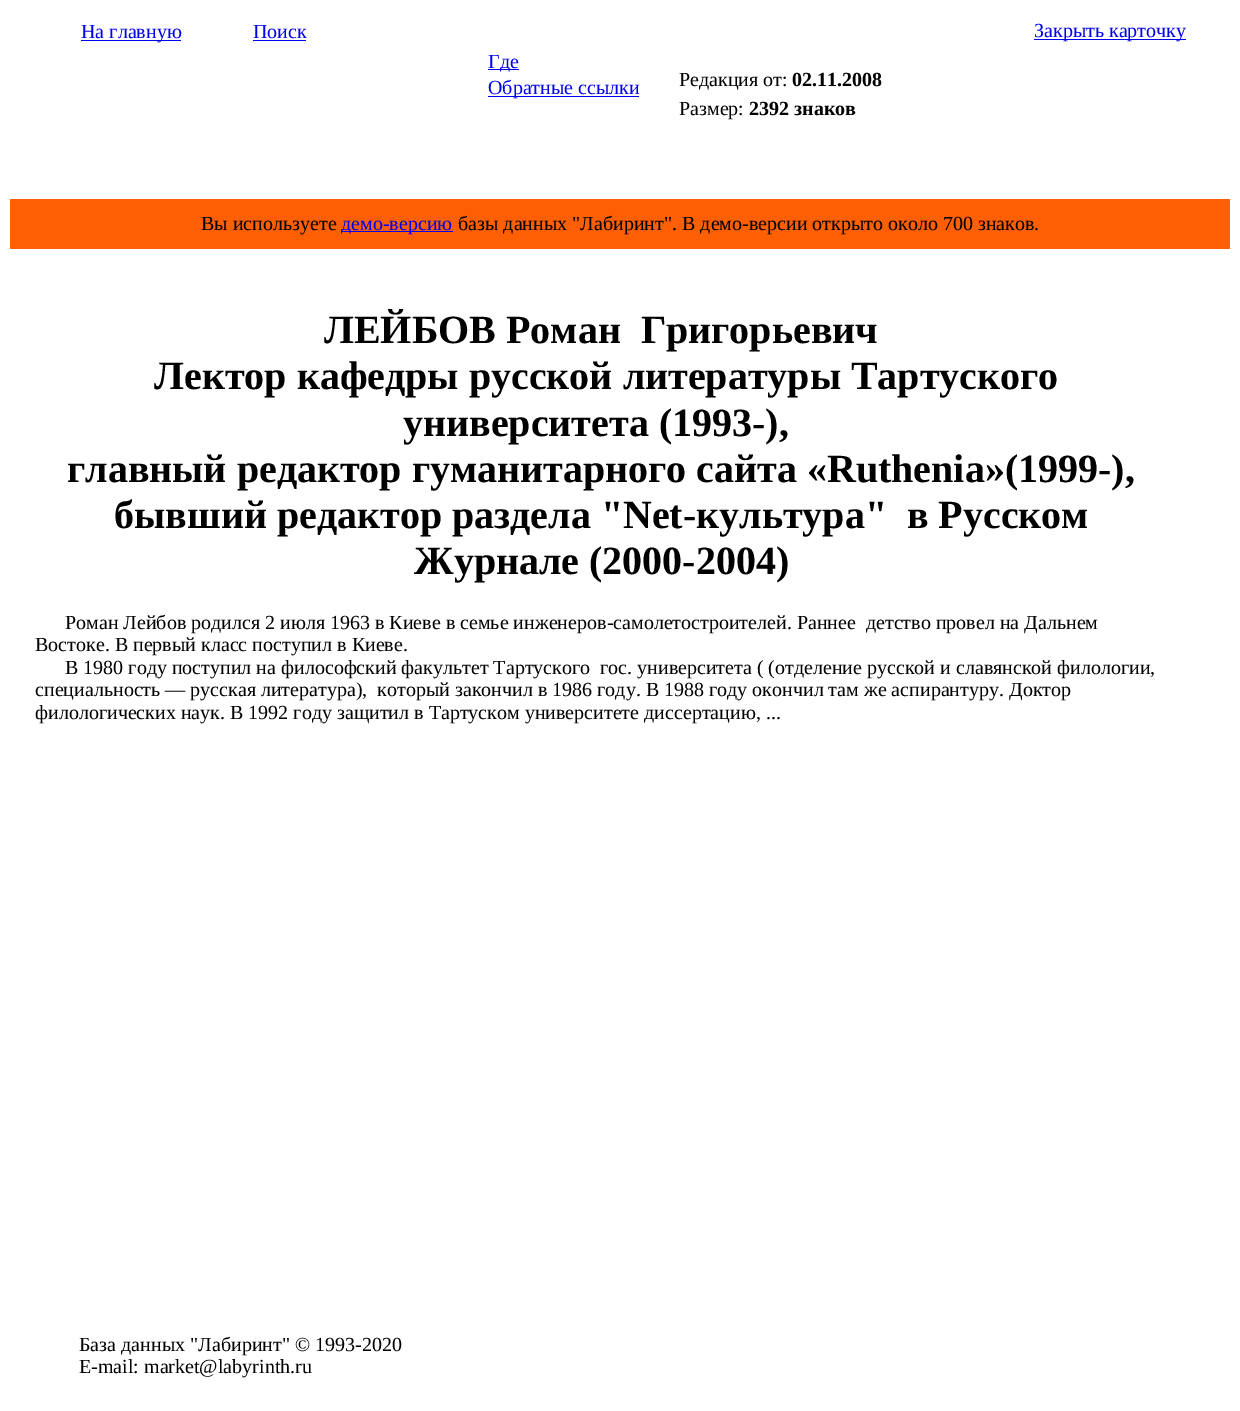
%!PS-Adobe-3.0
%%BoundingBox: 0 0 1240 1411
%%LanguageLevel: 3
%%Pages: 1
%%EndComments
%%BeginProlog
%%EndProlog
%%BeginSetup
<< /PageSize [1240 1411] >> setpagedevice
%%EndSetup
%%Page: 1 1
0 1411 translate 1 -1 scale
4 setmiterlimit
1 setgray
0 0 1240 1411 rectfill
0 0 0.933 setrgbcolor
81 40 100 1 rectfill
253 40 53 1 rectfill
1034 39 152 1 rectfill
488 69 31 1 rectfill
488 96 151 1 rectfill
1 0.373 0.012 setrgbcolor
10 199 1220 50 rectfill
0 0 0.933 setrgbcolor
341 231 112 1 rectfill
/LiberationSerif-Regular [20 0 0 -20 0 0] selectfont
81 38 moveto (На главную) show
253 38 moveto (Поиск) show
1034 37 moveto (Закрыть карточку) show
0 setgray
679 86 moveto (Редакция от:) show
/LiberationSerif-Bold [20 0 0 -20 0 0] selectfont
792 86 moveto (02.11.2008) show
/LiberationSerif-Regular [20 0 0 -20 0 0] selectfont
679 115 moveto (Размер:) show
/LiberationSerif-Bold [20 0 0 -20 0 0] selectfont
749 115 moveto (2392 знаков) show
/LiberationSerif-Regular [20 0 0 -20 0 0] selectfont
0 0 0.933 setrgbcolor
488 68 moveto (Где) show
488 94 moveto (Обратные ссылки) show
0 setgray
201 230 moveto (Вы используете) show
0 0 0.933 setrgbcolor
341 230 moveto (демо-версию) show
0 setgray
458 230 moveto (базы данных "Лабиринт". В демо-версии открыто около 700 знаков.) show
/LiberationSerif-Bold [40 0 0 -40 0 0] selectfont
324 343 moveto (ЛЕЙБОВ Роман  Григорьевич) show
154 389 moveto (Лектор кафедры русской литературы Тартуского) show
403 436 moveto (университета \(1993-\),) show
67 482 moveto (главный редактор гуманитарного сайта «Ruthenia»\(1999-\),) show
114 528 moveto (бывший редактор раздела "Net-культура"  в Русском) show
414 574 moveto (Журнале \(2000-2004\)) show
/LiberationSerif-Regular [20 0 0 -20 0 0] selectfont
65 629 moveto (Роман Лейбов родился 2 июля 1963 в Киеве в семье инженеров-самолетостроителей. Раннее  детство провел на Дальнем) show
35 651 moveto (Востоке. В первый класс поступил в Киеве.) show
65 674 moveto (В 1980 году поступил на философский факультет Тартуского  гос. университета \( \(отделение русской и славянской филологии,) show
35 696 moveto (специальность — русская литература\),  который закончил в 1986 году. В 1988 году окончил там же аспирантуру. Доктор) show
35 719 moveto (филологических наук. В 1992 году защитил в Тартуском университете диссертацию, ...) show
79 1351 moveto (База данных "Лабиринт" © 1993-2020) show
79 1373 moveto (E-mail: market@labyrinth.ru) show
showpage
%%EOF
